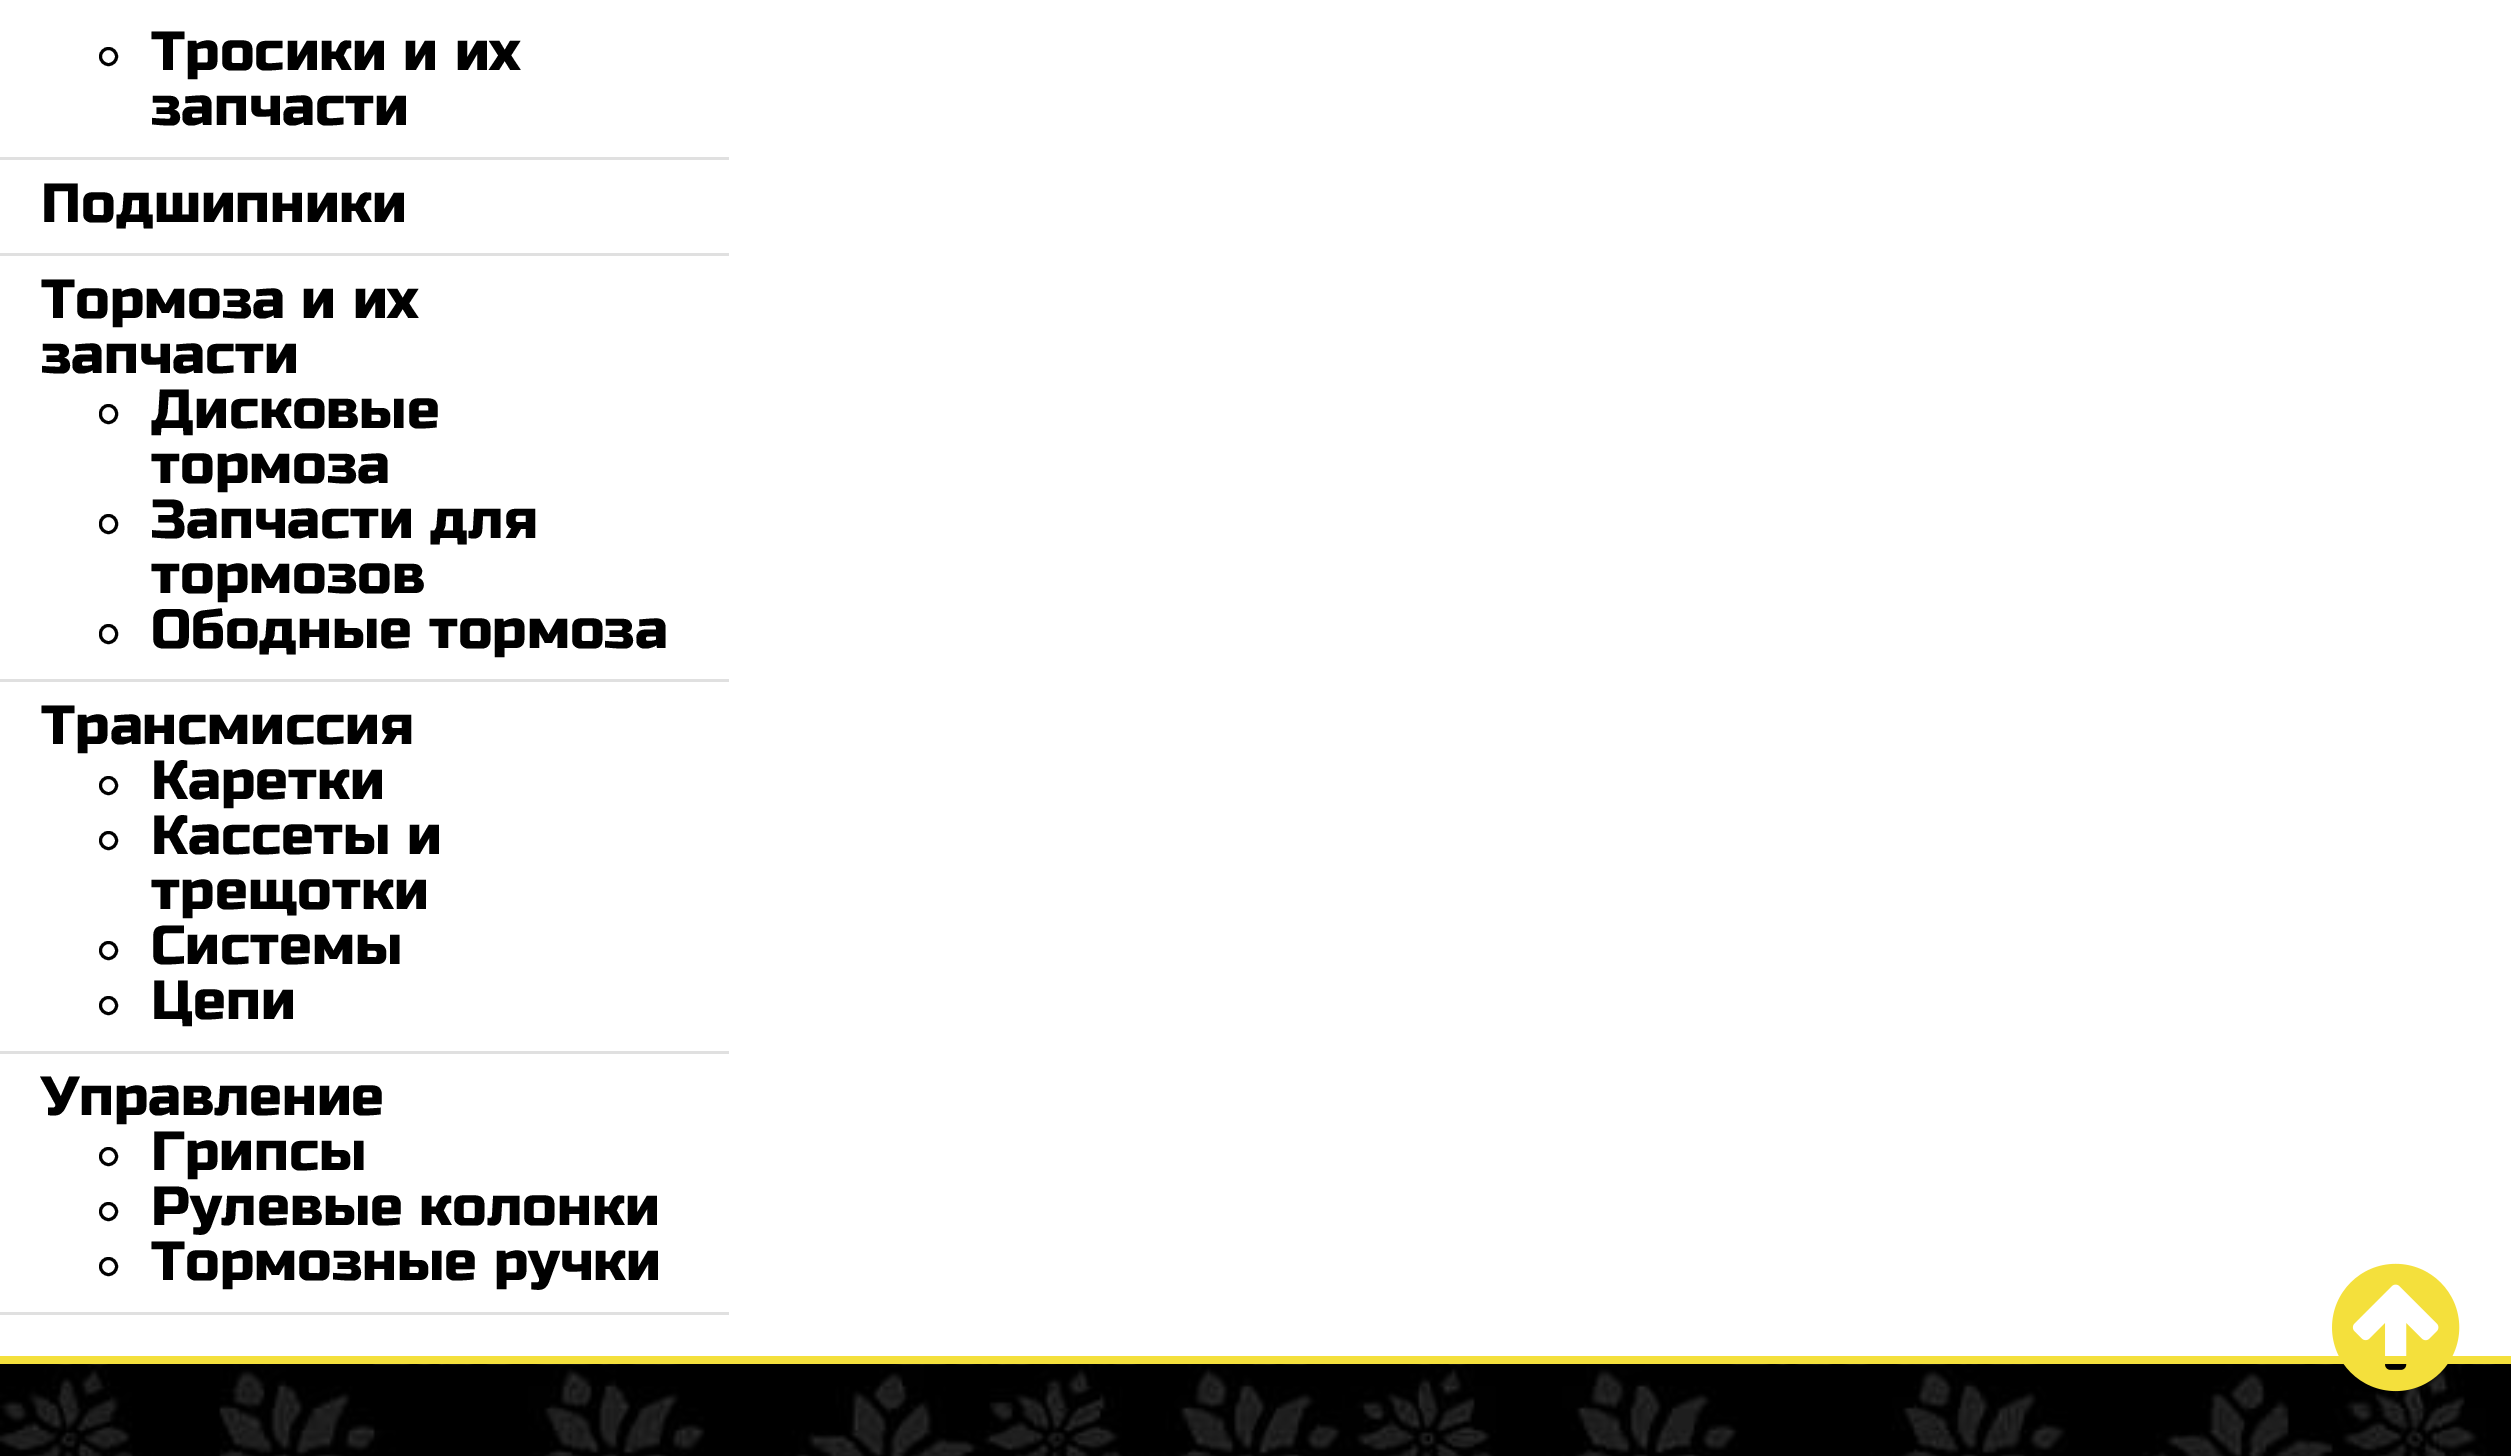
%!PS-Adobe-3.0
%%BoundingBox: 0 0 2511 1456
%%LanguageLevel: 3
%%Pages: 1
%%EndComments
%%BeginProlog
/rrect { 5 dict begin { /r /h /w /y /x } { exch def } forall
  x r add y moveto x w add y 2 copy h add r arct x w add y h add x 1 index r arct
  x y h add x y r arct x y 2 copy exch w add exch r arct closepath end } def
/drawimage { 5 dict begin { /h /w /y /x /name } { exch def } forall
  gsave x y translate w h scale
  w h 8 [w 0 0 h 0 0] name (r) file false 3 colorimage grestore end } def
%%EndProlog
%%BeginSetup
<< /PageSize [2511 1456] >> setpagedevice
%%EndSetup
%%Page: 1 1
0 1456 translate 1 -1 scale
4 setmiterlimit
1 setgray
0 0 2511 1456 rectfill
0.878 setgray
0 157 729 3 rectfill
0 setgray
3 setlinewidth
newpath 108.5 56.5 8 0 360 arc closepath stroke
0.878 setgray
0 253 729 3 rectfill
0 679 729 3 rectfill
0 setgray
100.5 405.5 16 17 8 rrect stroke
100.5 515.5 16 17 8 rrect stroke
100.5 625.5 16 17 8 rrect stroke
0.878 setgray
0 1051 729 3 rectfill
0 setgray
newpath 108.5 785.5 8 0 360 arc closepath stroke
newpath 108.5 840.5 8 0 360 arc closepath stroke
newpath 108.5 950.5 8 0 360 arc closepath stroke
newpath 108.5 1005.5 8 0 360 arc closepath stroke
0.878 setgray
0 1312 729 3 rectfill
0 setgray
newpath 108.5 1156.5 8 0 360 arc closepath stroke
newpath 108.5 1211.5 8 0 360 arc closepath stroke
newpath 108.5 1266.5 8 0 360 arc closepath stroke
(images/1.raw) 0 1364 2511 92 drawimage
0.957 0.878 0.235 setrgbcolor
0 1356 2511 8 rectfill
(images/2.raw) 2332 1263 128 129 drawimage
/RussoOne-Regular [55 0 0 -55 0 0] selectfont
0 setgray
151 70 moveto (Тросики и их) show
151 125 moveto (запчасти) show
41 222 moveto (Подшипники) show
41 318 moveto (Тормоза и их) show
41 373 moveto (запчасти) show
151 428 moveto (Дисковые) show
151 483 moveto (тормоза) show
151 538 moveto (Запчасти для) show
151 593 moveto (тормозов) show
151 648 moveto (Ободные тормоза) show
41 744 moveto (Трансмиссия) show
151 799 moveto (Каретки) show
151 854 moveto (Кассеты и) show
151 909 moveto (трещотки) show
151 964 moveto (Системы) show
151 1019 moveto (Цепи) show
41 1115 moveto (Управление) show
151 1170 moveto (Грипсы) show
151 1225 moveto (Рулевые колонки) show
151 1280 moveto (Тормозные ручки) show
showpage
%%EOF
